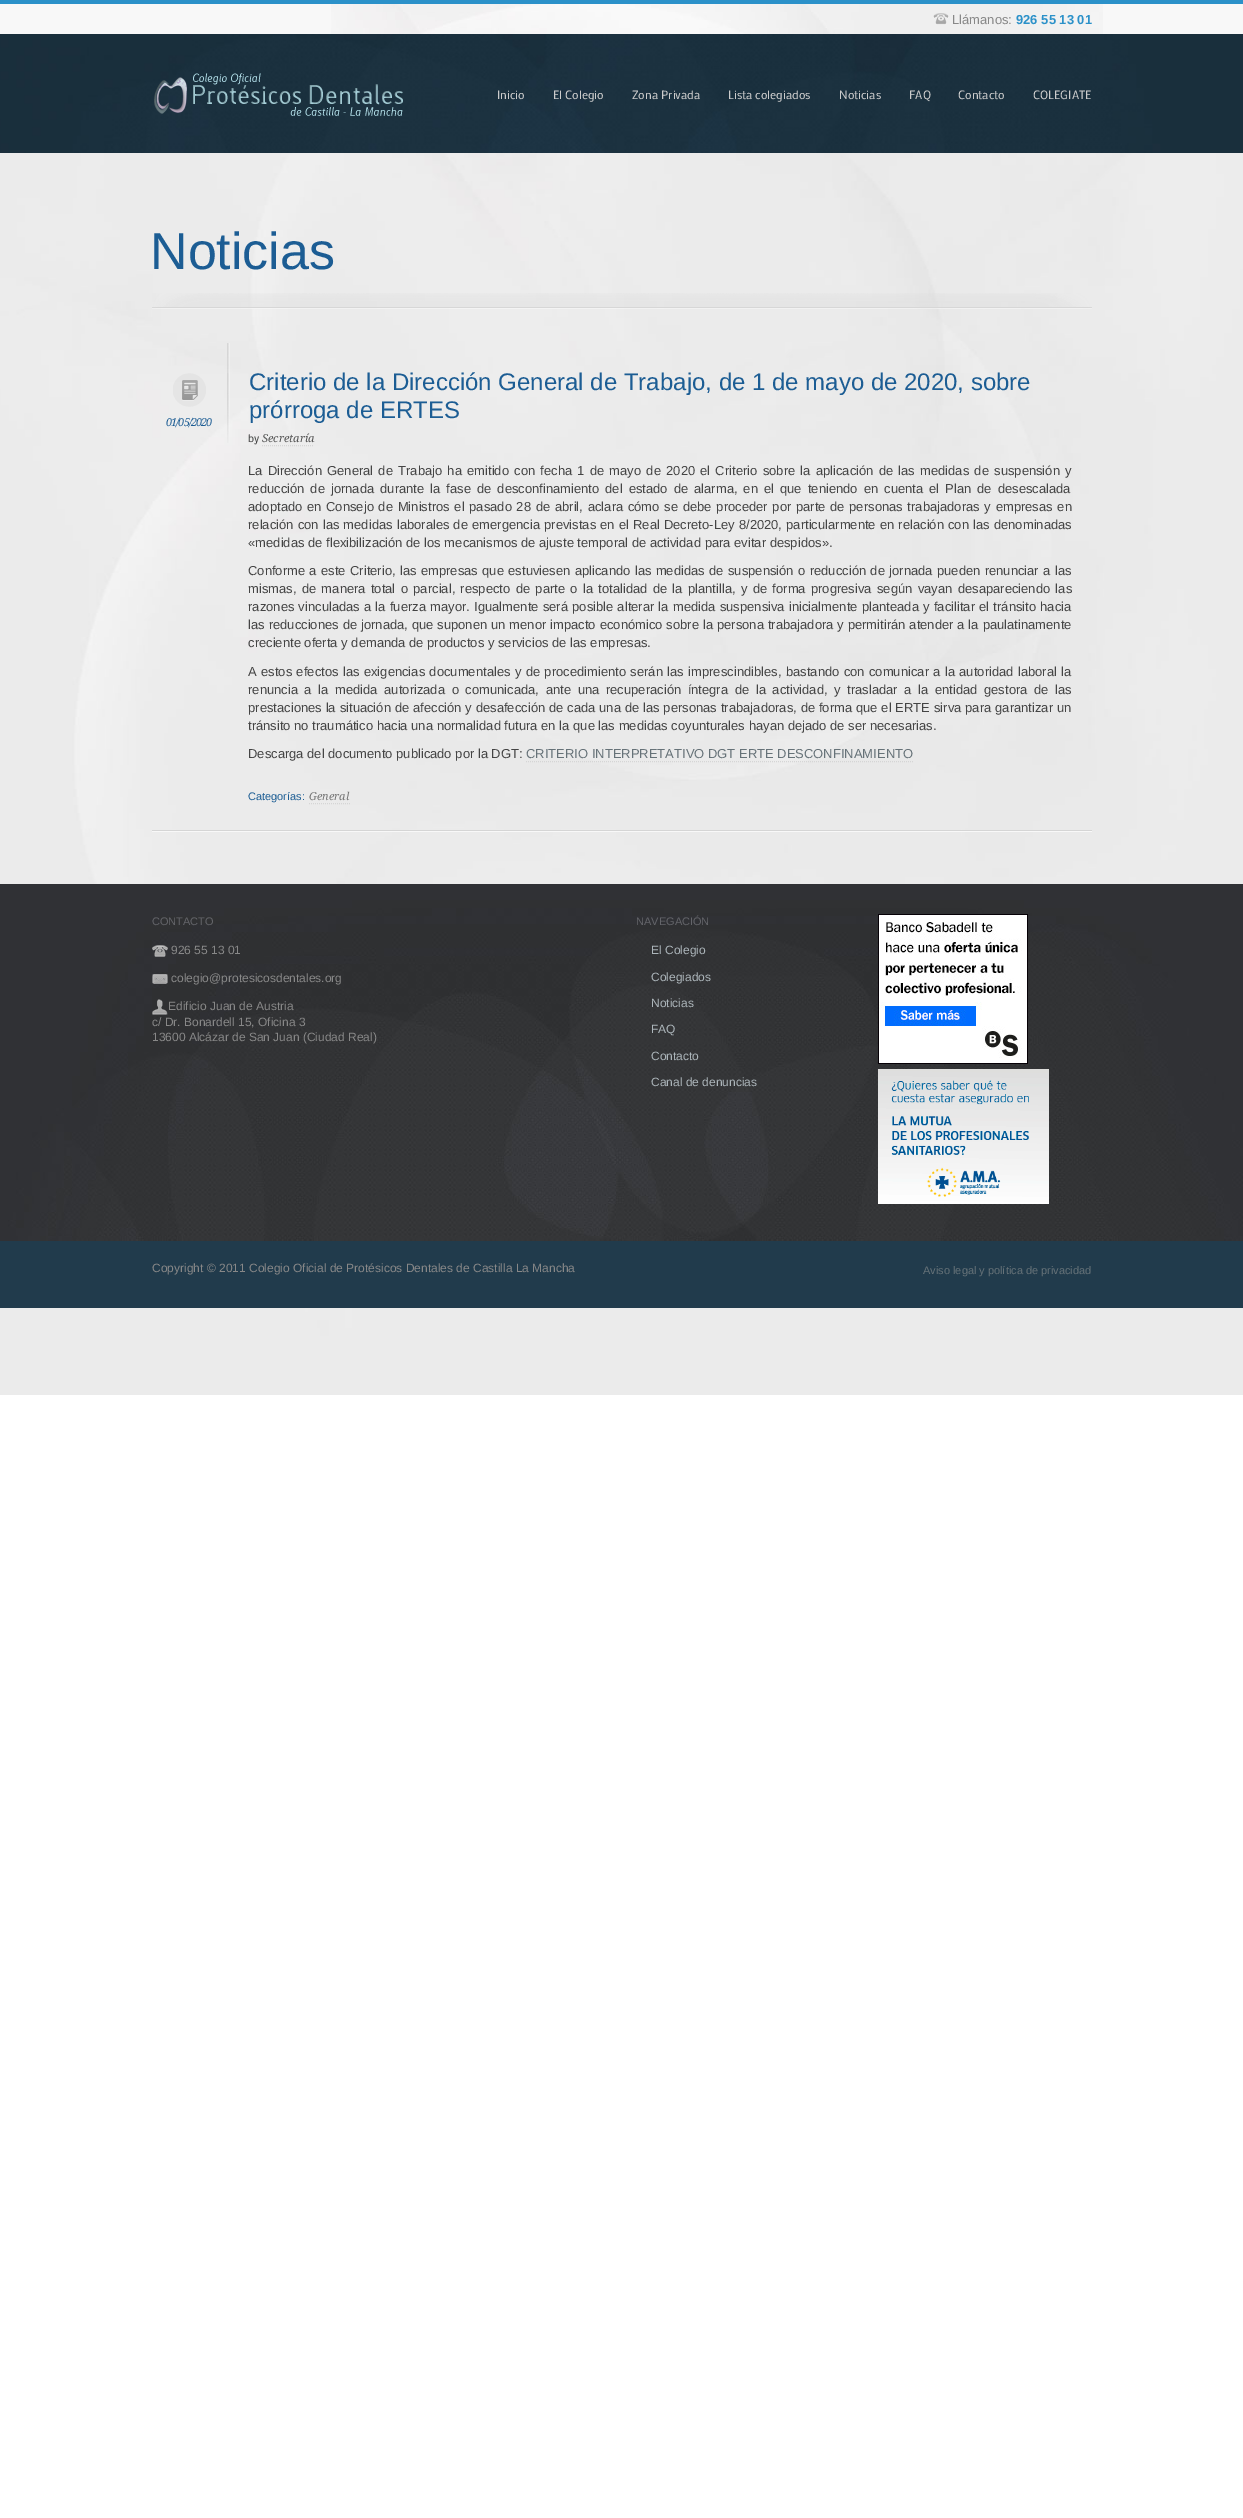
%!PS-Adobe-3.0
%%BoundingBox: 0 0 1243 2518
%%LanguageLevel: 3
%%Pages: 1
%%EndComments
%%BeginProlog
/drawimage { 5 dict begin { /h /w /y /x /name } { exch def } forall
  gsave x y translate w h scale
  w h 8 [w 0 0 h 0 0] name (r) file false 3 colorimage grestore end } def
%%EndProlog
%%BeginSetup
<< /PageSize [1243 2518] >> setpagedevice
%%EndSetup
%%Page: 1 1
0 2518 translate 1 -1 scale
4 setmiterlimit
1 setgray
0 0 1243 2518 rectfill
(images/1.raw) 0 1308 1243 87 drawimage
0.973 setgray
0 4 1243 30 rectfill
(images/2.raw) 331 4 772 30 drawimage
0.169 0.569 0.788 setrgbcolor
0 0 1243 4 rectfill
(images/3.raw) 933 13 16 12 drawimage
(images/4.raw) 0 34 1243 119 drawimage
(images/5.raw) 154 73 249 43 drawimage
(images/6.raw) 0 153 1243 731 drawimage
(images/7.raw) 152 293 940 16 drawimage
0.973 setgray
152 831 940 1 rectfill
0.835 setgray
152 830 940 1 rectfill
(images/8.raw) 173 373 33 34 drawimage
(images/9.raw) 182 380 16 21 drawimage
(images/10.raw) 227 343 3 100 drawimage
[1 1] 0 setdash
newpath 262 445.5 moveto 314 445.5 lineto stroke
newpath 526 761.5 moveto 913 761.5 lineto stroke
newpath 309 803.5 moveto 350 803.5 lineto stroke
(images/11.raw) 0 884 1243 357 drawimage
(images/12.raw) 152 945 16 12 drawimage
(images/13.raw) 152 974 16 10 drawimage
(images/14.raw) 152 999 16 16 drawimage
(images/15.raw) 878 914 150 150 drawimage
(images/16.raw) 878 1069 171 135 drawimage
0.129 0.231 0.298 setrgbcolor
0 1241 1243 67 rectfill
/Arimo-Regular [13 0 0 -13 0 0] selectfont
0.533 setgray
952 24 moveto (Llámanos:) show
/Arimo-Bold [13 0 0 -13 0 0] selectfont
0.169 0.569 0.788 setrgbcolor
1016 24 moveto (926 55 13 01) show
/Mako-Regular [12 0 0 -12 0 0] selectfont
0.8 setgray
497 99 moveto (Inicio) show
553 99 moveto (El Colegio) show
632 99 moveto (Zona Privada) show
728 99 moveto (Lista colegiados) show
839 99 moveto (Noticias) show
909 99 moveto (FAQ) show
958 99 moveto (Contacto) show
1033 99 moveto (COLEGIATE) show
/Arimo-Regular [52 0 0 -52 0 0] selectfont
0.11 0.365 0.58 setrgbcolor
150 269 moveto (Noticias) show
/DroidSerif-Italic [11 0 0 -11 0 0] selectfont
166 426 moveto -1 0 (01/05/2020) ashow
/Arimo-Regular [24 0 0 -24 0 0] selectfont
249 390 moveto (Criterio de la Dirección General de Trabajo, de 1 de mayo de 2020, sobre) show
249 418 moveto (prórroga de ERTES) show
/Mako-Regular [11 0 0 -11 0 0] selectfont
0.267 setgray
248 442 moveto (by) show
/DroidSerif-Italic [11 0 0 -11 0 0] selectfont
0.333 setgray
262 442 moveto (Secretaría) show
/Arimo-Regular [13 0 0 -13 0 0] selectfont
0.267 setgray
248 475 moveto 1.6 0 32 (La Dirección General de Trabajo ha emitido con fecha 1 de mayo de 2020 el Criterio sobre la aplicación de las medidas de suspensión y) widthshow
248 493 moveto 2.4 0 32 (reducción de jornada durante la fase de desconfinamiento del estado de alarma, en el que teniendo en cuenta el Plan de desescalada) widthshow
248 511 moveto 1.1 0 32 (adoptado en Consejo de Ministros el pasado 28 de abril, aclara cómo se debe proceder por parte de personas trabajadoras y empresas en) widthshow
248 529 moveto 0.5 0 32 (relación con las medidas laborales de emergencia previstas en el Real Decreto-Ley 8/2020, particularmente en relación con las denominadas) widthshow
248 547 moveto («medidas de flexibilización de los mecanismos de ajuste temporal de actividad para evitar despidos».) show
248 575 moveto 0.75 0 32 (Conforme a este Criterio, las empresas que estuviesen aplicando las medidas de suspensión o reducción de jornada pueden renunciar a las) widthshow
248 593 moveto 1.7 0 32 (mismas, de manera total o parcial, respecto de parte o la totalidad de la plantilla, y de forma progresiva según vayan desapareciendo las) widthshow
248 611 moveto 0.6 0 32 (razones vinculadas a la fuerza mayor. Igualmente será posible alterar la medida suspensiva inicialmente planteada y facilitar el tránsito hacia) widthshow
248 629 moveto 0.3 0 32 (las reducciones de jornada, que suponen un menor impacto económico sobre la persona trabajadora y permitirán atender a la paulatinamente) widthshow
248 647 moveto (creciente oferta y demanda de productos y servicios de las empresas.) show
248 676 moveto 0.75 0 32 (A estos efectos las exigencias documentales y de procedimiento serán las imprescindibles, bastando con comunicar a la autoridad laboral la) widthshow
248 694 moveto 3 0 32 (renuncia a la medida autorizada o comunicada, ante una recuperación íntegra de la actividad, y trasladar a la entidad gestora de las) widthshow
248 712 moveto 0.25 0 32 (prestaciones la situación de afección y desafección de cada una de las personas trabajadoras, de forma que el ERTE sirva para garantizar un) widthshow
248 730 moveto (tránsito no traumático hacia una normalidad futura en la que las medidas coyunturales hayan dejado de ser necesarias.) show
248 758 moveto (Descarga del documento publicado por la DGT:) show
0.4 0.447 0.471 setrgbcolor
526 758 moveto (CRITERIO INTERPRETATIVO DGT ERTE DESCONFINAMIENTO) show
/Arimo-Regular [11 0 0 -11 0 0] selectfont
0.11 0.365 0.58 setrgbcolor
248 800 moveto (Categorías:) show
/DroidSerif-Italic [11 0 0 -11 0 0] selectfont
0.467 setgray
309 800 moveto (General) show
/Arimo-Regular [11 0 0 -11 0 0] selectfont
0.392 0.396 0.416 setrgbcolor
152 925 moveto (CONTACTO) show
/Arimo-Regular [12 0 0 -12 0 0] selectfont
0.533 setgray
171 954 moveto (926 55 13 01) show
171 982 moveto (colegio@protesicosdentales.org) show
168 1010 moveto (Edificio Juan de Austria) show
152 1026 moveto (c/ Dr. Bonardell 15, Oficina 3) show
152 1041 moveto (13600 Alcázar de San Juan \(Ciudad Real\)) show
/Arimo-Regular [11 0 0 -11 0 0] selectfont
0.392 0.396 0.416 setrgbcolor
636 925 moveto (NAVEGACIÓN) show
/Arimo-Regular [12 0 0 -12 0 0] selectfont
0.678 0.714 0.733 setrgbcolor
651 954 moveto (El Colegio) show
651 981 moveto (Colegiados) show
651 1007 moveto (Noticias) show
651 1033 moveto (FAQ) show
651 1060 moveto (Contacto) show
651 1086 moveto (Canal de denuncias) show
0.533 setgray
152 1272 moveto (Copyright © 2011 Colegio Oficial de Protésicos Dentales de Castilla La Mancha) show
/Arimo-Regular [11 0 0 -11 0 0] selectfont
0.4 0.447 0.471 setrgbcolor
923 1274 moveto (Aviso legal y política de privacidad) show
showpage
%%EOF
